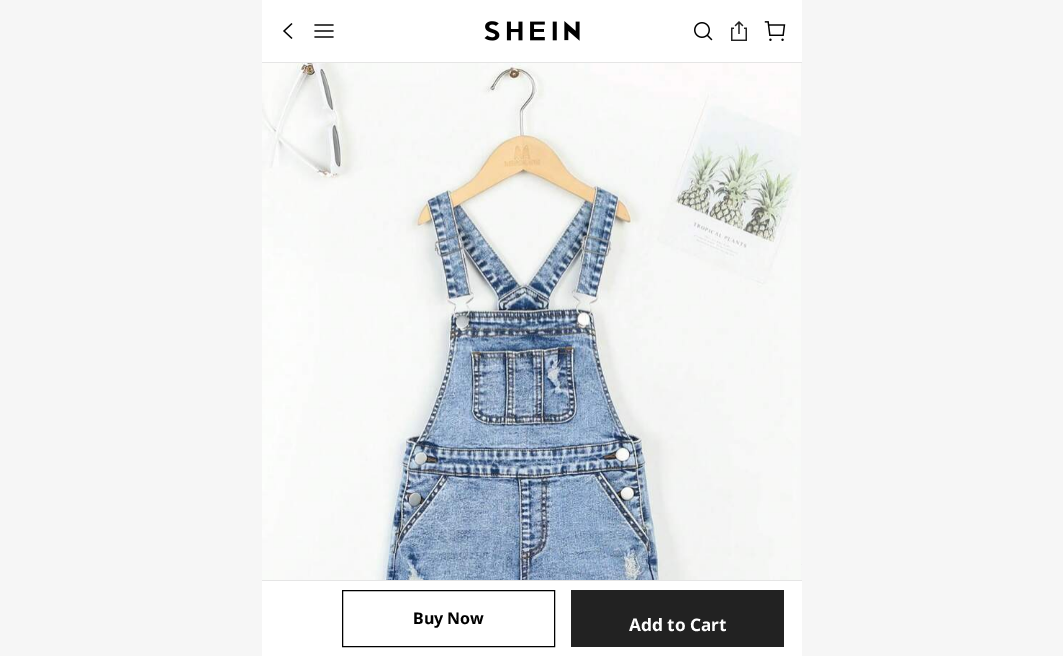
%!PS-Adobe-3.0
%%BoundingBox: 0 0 1063 656
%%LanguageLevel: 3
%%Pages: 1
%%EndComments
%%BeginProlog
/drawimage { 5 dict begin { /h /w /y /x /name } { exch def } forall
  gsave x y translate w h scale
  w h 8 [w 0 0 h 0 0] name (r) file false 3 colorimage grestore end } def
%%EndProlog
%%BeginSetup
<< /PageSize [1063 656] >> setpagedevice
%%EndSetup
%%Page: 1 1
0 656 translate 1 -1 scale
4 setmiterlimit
0.965 setgray
0 0 1063 656 rectfill
1 setgray
262 0 540 62 rectfill
0.898 setgray
262 62 540 1 rectfill
(images/1.raw) 283 23 10 16 drawimage
(images/2.raw) 314 24 20 14 drawimage
(images/3.raw) 484 21 96 20 drawimage
(images/4.raw) 694 22 19 19 drawimage
(images/5.raw) 731 21 16 20 drawimage
(images/6.raw) 764 21 22 20 drawimage
(images/7.raw) 262 63 539 517 drawimage
0.941 setgray
801 564 1 1 rectfill
1 setgray
262 581 540 75 rectfill
0.898 setgray
262 580 540 1 rectfill
0 setgray
342.5 590.5 212 56 rectstroke
0.133 setgray
571 590 213 57 rectfill
/NotoSans-Bold [16 0 0 -16 0 0] selectfont
0 setgray
413 624 moveto (Buy Now) show
/NotoSans-Bold [17.25 0 0 -17.25 0 0] selectfont
1 setgray
629 631 moveto (Add to Cart) show
showpage
%%EOF
